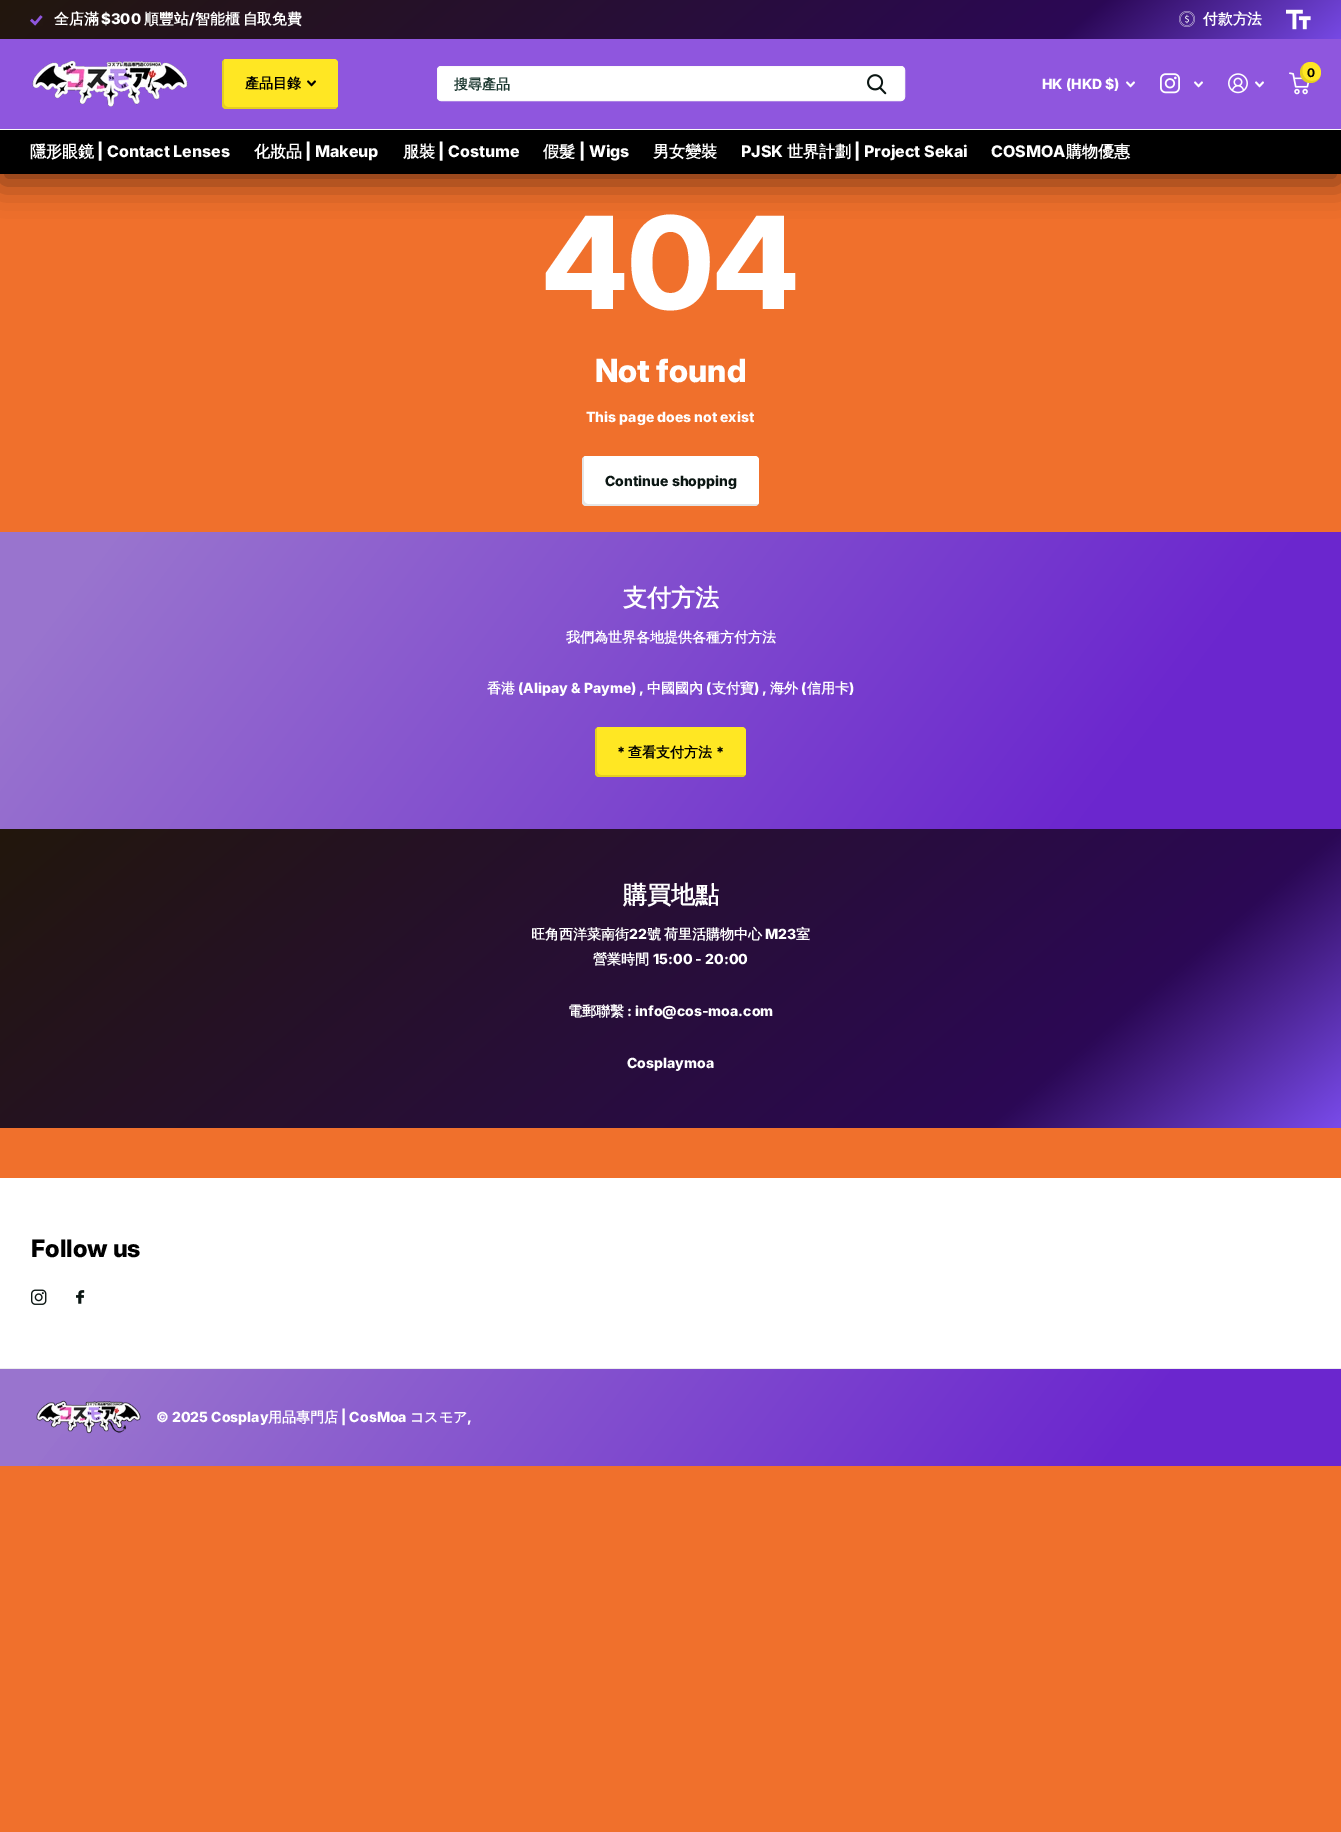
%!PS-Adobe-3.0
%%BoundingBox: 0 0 1341 1832
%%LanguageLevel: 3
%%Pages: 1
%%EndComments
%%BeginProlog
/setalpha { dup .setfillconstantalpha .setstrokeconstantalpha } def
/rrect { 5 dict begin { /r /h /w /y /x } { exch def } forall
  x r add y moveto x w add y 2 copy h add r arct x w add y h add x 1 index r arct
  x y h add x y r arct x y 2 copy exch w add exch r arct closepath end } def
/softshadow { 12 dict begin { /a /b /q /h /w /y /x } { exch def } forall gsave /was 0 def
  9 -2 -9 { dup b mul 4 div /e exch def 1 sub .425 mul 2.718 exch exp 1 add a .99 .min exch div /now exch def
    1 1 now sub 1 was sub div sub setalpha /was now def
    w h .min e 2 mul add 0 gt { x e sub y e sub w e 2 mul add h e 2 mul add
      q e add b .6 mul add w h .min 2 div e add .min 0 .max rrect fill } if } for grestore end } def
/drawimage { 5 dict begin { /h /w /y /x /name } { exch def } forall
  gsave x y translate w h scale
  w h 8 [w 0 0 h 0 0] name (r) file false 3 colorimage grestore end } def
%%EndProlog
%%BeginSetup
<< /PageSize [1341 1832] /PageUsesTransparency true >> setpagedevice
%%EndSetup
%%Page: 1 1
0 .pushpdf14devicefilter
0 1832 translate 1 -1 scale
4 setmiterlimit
0.941 0.439 0.173 setrgbcolor
0 0 1341 1832 rectfill
0 setgray
0 9 1341 174 0 16 0.5 softshadow
0.561 0.337 0.871 setrgbcolor
0 39 1341 90 rectfill
gsave newpath 0 0 moveto 1341 0 lineto 1341 39 lineto 0 39 lineto closepath clip newpath
<< /ShadingType 2 /ColorSpace /DeviceRGB /Coords [985 394 356 -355] /Extend [true true] /Function << /FunctionType 3 /Domain [0 1] /Functions [<< /FunctionType 2 /Domain [0 1] /C0 [0.471 0.29 0.91] /C1 [0.471 0.29 0.91] /N 1 >> << /FunctionType 2 /Domain [0 1] /C0 [0.471 0.29 0.91] /C1 [0.169 0.031 0.333] /N 1 >> << /FunctionType 2 /Domain [0 1] /C0 [0.169 0.031 0.333] /C1 [0.133 0.094 0.035] /N 1 >>] /Bounds [0.04 0.23] /Encode [0 1 0 1 0 1] >> >> shfill grestore
(images/1.raw) 30 15 13 11 drawimage
(images/2.raw) 1179 11 16 16 drawimage
(images/3.raw) 1286 9 25 21 drawimage
(images/4.raw) 32 60 156 47 drawimage
1 0.906 0.137 setrgbcolor
222 59 116 50 4 rrect fill
0.1 setalpha
0 setgray
newpath 224 59 moveto 223 60 222 61 222 63 curveto 222 105 lineto 222 107 224 109 226 109 curveto 334 109 lineto 336 109 337 108 338 107 curveto 336 107 lineto 228 107 lineto 226 107 224 105 224 103 curveto 224 61 lineto closepath fill
1 setalpha
(images/5.raw) 307 80 9 7 drawimage
1 setgray
437.5 66.5 467 34 3.5 rrect gsave fill grestore
0.98 setgray
stroke
(images/6.raw) 867 74 20 21 drawimage
(images/7.raw) 1126 81 9 7 drawimage
(images/8.raw) 1160 73 20 21 drawimage
(images/7.raw) 1194 81 9 7 drawimage
(images/9.raw) 1228 73 20 21 drawimage
(images/7.raw) 1255 81 9 7 drawimage
(images/10.raw) 1289 72 21 23 drawimage
1 0.906 0.137 setrgbcolor
newpath 1310.5 72.5 10.5 0 360 arc closepath fill
0.1 setalpha
0 setgray
newpath 1319 78.5 moveto 1317.5 80 1315 81 1312 81 curveto 1303 81 1300 70.5 1304 64.5 curveto 1299 68 1298.5 75.5 1303 80 curveto 1307.5 84.5 1315.5 84 1319 78.5 curveto closepath fill
1 setalpha
0 130 1341 44 rectfill
0.98 setgray
0 129 1341 1 rectfill
1 setgray
582 456 177 50 4 rrect fill
0.1 setalpha
0 setgray
newpath 584 456 moveto 583 457 582 458 582 460 curveto 582 502 lineto 582 504 584 506 586 506 curveto 755 506 lineto 757 506 758 505 759 504 curveto 757 504 lineto 588 504 lineto 586 504 584 502 584 500 curveto 584 458 lineto closepath fill
1 setalpha
gsave newpath 0 532 moveto 1341 532 lineto 1341 829 lineto 0 829 lineto closepath clip newpath
<< /ShadingType 2 /ColorSpace /DeviceRGB /Coords [129 272 1212 1089] /Extend [true true] /Function << /FunctionType 3 /Domain [0 1] /Functions [<< /FunctionType 2 /Domain [0 1] /C0 [0.6 0.455 0.808] /C1 [0.6 0.455 0.808] /N 1 >> << /FunctionType 2 /Domain [0 1] /C0 [0.6 0.455 0.808] /C1 [0.42 0.149 0.808] /N 1 >> << /FunctionType 2 /Domain [0 1] /C0 [0.42 0.149 0.808] /C1 [0.42 0.149 0.808] /N 1 >>] /Bounds [0.11 0.81] /Encode [0 1 0 1 0 1] >> >> shfill grestore
1 0.906 0.137 setrgbcolor
595 727 151 50 4 rrect fill
0.1 setalpha
0 setgray
newpath 597 727 moveto 596 728 595 729 595 731 curveto 595 773 lineto 595 775 597 777 599 777 curveto 742 777 lineto 744 777 745 776 746 775 curveto 744 775 lineto 601 775 lineto 599 775 597 773 597 771 curveto 597 729 lineto closepath fill
1 setalpha
gsave newpath 0 829 moveto 1341 829 lineto 1341 1128 lineto 0 1128 lineto closepath clip newpath
<< /ShadingType 2 /ColorSpace /DeviceRGB /Coords [1049 1429 292 528] /Extend [true true] /Function << /FunctionType 3 /Domain [0 1] /Functions [<< /FunctionType 2 /Domain [0 1] /C0 [0.471 0.29 0.91] /C1 [0.471 0.29 0.91] /N 1 >> << /FunctionType 2 /Domain [0 1] /C0 [0.471 0.29 0.91] /C1 [0.169 0.031 0.333] /N 1 >> << /FunctionType 2 /Domain [0 1] /C0 [0.169 0.031 0.333] /C1 [0.133 0.094 0.035] /N 1 >>] /Bounds [0.04 0.23] /Encode [0 1 0 1 0 1] >> >> shfill grestore
1 setgray
0 1178 1341 190 rectfill
(images/11.raw) 31 1289 16 16 drawimage
(images/12.raw) 76 1290 9 14 drawimage
gsave newpath 0 1369 moveto 1341 1369 lineto 1341 1466 lineto 0 1466 lineto closepath clip newpath
<< /ShadingType 2 /ColorSpace /DeviceRGB /Coords [177 1045 1164 1790] /Extend [true true] /Function << /FunctionType 3 /Domain [0 1] /Functions [<< /FunctionType 2 /Domain [0 1] /C0 [0.6 0.455 0.808] /C1 [0.6 0.455 0.808] /N 1 >> << /FunctionType 2 /Domain [0 1] /C0 [0.6 0.455 0.808] /C1 [0.42 0.149 0.808] /N 1 >> << /FunctionType 2 /Domain [0 1] /C0 [0.42 0.149 0.808] /C1 [0.42 0.149 0.808] /N 1 >>] /Bounds [0.11 0.81] /Encode [0 1 0 1 0 1] >> >> shfill grestore
0.925 0.929 0.925 setrgbcolor
0 1368 1341 1 rectfill
(images/13.raw) 36 1400 105 34 drawimage
/WenQuanYiZenHei-Bold [14.75 0 0 -14.75 0 0] selectfont
1 setgray
54 24 moveto (全店滿) show
/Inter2-ExtraBold [14.75 0 0 -14.75 0 0] selectfont
101 24 moveto ($300) show
/WenQuanYiZenHei-Bold [14.75 0 0 -14.75 0 0] selectfont
144 24 moveto (順豐站) show
/Inter2-ExtraBold [14.75 0 0 -14.75 0 0] selectfont
189 24 moveto (/) show
/WenQuanYiZenHei-Bold [14.75 0 0 -14.75 0 0] selectfont
195 24 moveto -1 0 32 (智能櫃 自取免費) widthshow
1203 24 moveto (付款方法) show
/WenQuanYiZenHei-Bold [14 0 0 -14 0 0] selectfont
0 setgray
245 88 moveto (產品目錄) show
0.11 0.22 0.188 setrgbcolor
454 89 moveto (搜尋產品) show
/Inter2-ExtraBold [14 0 0 -14 0 0] selectfont
1 setgray
1042 89 moveto (HK \(HKD $\)) show
/Inter-Bold [12 0 0 -12 0 0] selectfont
0 setgray
1307 77 moveto (0) show
/WenQuanYiZenHei-Bold [16 0 0 -16 0 0] selectfont
1 setgray
30 157 moveto (隱形眼鏡) show
/Inter2-ExtraBold [16 0 0 -16 0 0] selectfont
97 157 moveto (| Contact Lenses) show
/WenQuanYiZenHei-Bold [16 0 0 -16 0 0] selectfont
254 157 moveto (化妝品) show
/Inter2-ExtraBold [16 0 0 -16 0 0] selectfont
305 157 moveto (| Makeup) show
/WenQuanYiZenHei-Bold [16 0 0 -16 0 0] selectfont
403 157 moveto (服裝) show
/Inter2-ExtraBold [16 0 0 -16 0 0] selectfont
438 157 moveto (| Costume) show
/WenQuanYiZenHei-Bold [16 0 0 -16 0 0] selectfont
543 157 moveto (假髮) show
/Inter2-ExtraBold [16 0 0 -16 0 0] selectfont
579 157 moveto (| Wigs) show
/WenQuanYiZenHei-Bold [16 0 0 -16 0 0] selectfont
653 157 moveto (男女變裝) show
/Inter2-ExtraBold [16 0 0 -16 0 0] selectfont
741 157 moveto (PJSK) show
/WenQuanYiZenHei-Bold [16 0 0 -16 0 0] selectfont
787 157 moveto (世界計劃) show
/Inter2-ExtraBold [16 0 0 -16 0 0] selectfont
854 157 moveto (| Project Sekai) show
991 157 moveto (COSMOA) show
/WenQuanYiZenHei-Bold [16 0 0 -16 0 0] selectfont
1066 157 moveto (購物優惠) show
/Inter-ExtraBold [128 0 0 -128 0 0] selectfont
542 309 moveto (404) show
/Inter-ExtraBold [32 0 0 -32 0 0] selectfont
595 382 moveto (Not found) show
/Inter2-ExtraBold [14 0 0 -14 0 0] selectfont
586 422 moveto (This page does not exist) show
0.043 0.086 0.075 setrgbcolor
605 486 moveto (Continue shopping) show
/WenQuanYiZenHei-Bold [24 0 0 -24 0 0] selectfont
1 setgray
623 606 moveto (支付方法) show
/WenQuanYiZenHei-Bold [14 0 0 -14 0 0] selectfont
566 642 moveto (我們為世界各地提供各種方付方法) show
487 693 moveto (香港) show
/Inter2-ExtraBold [14 0 0 -14 0 0] selectfont
518 693 moveto (\(Alipay & Payme\) ,) show
/WenQuanYiZenHei-Bold [14 0 0 -14 0 0] selectfont
647 693 moveto (中國國內) show
/Inter2-ExtraBold [14 0 0 -14 0 0] selectfont
706 693 moveto (\() show
/WenQuanYiZenHei-Bold [14 0 0 -14 0 0] selectfont
712 693 moveto (支付寶) show
/Inter2-ExtraBold [14 0 0 -14 0 0] selectfont
754 693 moveto (\) ,) show
/WenQuanYiZenHei-Bold [14 0 0 -14 0 0] selectfont
770 693 moveto (海外) show
/Inter2-ExtraBold [14 0 0 -14 0 0] selectfont
801 693 moveto (\() show
/WenQuanYiZenHei-Bold [14 0 0 -14 0 0] selectfont
807 693 moveto (信用卡) show
/Inter2-ExtraBold [14 0 0 -14 0 0] selectfont
849 693 moveto (\)) show
0 setgray
617 757 moveto (*) show
/WenQuanYiZenHei-Bold [14 0 0 -14 0 0] selectfont
628 757 moveto (查看支付方法) show
/Inter2-ExtraBold [14 0 0 -14 0 0] selectfont
716 757 moveto (*) show
/WenQuanYiZenHei-Bold [24 0 0 -24 0 0] selectfont
1 setgray
623 903 moveto (購買地點) show
/WenQuanYiZenHei-Bold [14 0 0 -14 0 0] selectfont
531 939 moveto (旺角西洋菜南街) show
/Inter2-ExtraBold [14 0 0 -14 0 0] selectfont
629 939 moveto (22) show
/WenQuanYiZenHei-Bold [14 0 0 -14 0 0] selectfont
647 939 moveto -1 0 32 (號 荷里活購物中心) widthshow
/Inter2-ExtraBold [14 0 0 -14 0 0] selectfont
765 939 moveto (M23) show
/WenQuanYiZenHei-Bold [14 0 0 -14 0 0] selectfont
796 939 moveto (室) show
593 964 moveto (營業時間) show
/Inter2-ExtraBold [14 0 0 -14 0 0] selectfont
653 964 moveto (15:00 - 20:00) show
/WenQuanYiZenHei-Bold [14 0 0 -14 0 0] selectfont
568 1016 moveto (電郵聯繫) show
/Inter2-ExtraBold [14 0 0 -14 0 0] selectfont
627 1016 moveto (: info@cos-moa.com) show
627 1068 moveto (Cosplaymoa) show
/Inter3-ExtraBold [24 0 0 -24 0 0] selectfont
0 setgray
31 1257 moveto (Follow us) show
/Inter2-ExtraBold [14 0 0 -14 0 0] selectfont
1 setgray
156 1422 moveto (© 2025 Cosplay) show
/WenQuanYiZenHei-Bold [14 0 0 -14 0 0] selectfont
268 1422 moveto (用品專門店) show
/Inter2-ExtraBold [14 0 0 -14 0 0] selectfont
341 1422 moveto (| CosMoa) show
/WenQuanYiZenHei-Bold [14 0 0 -14 0 0] selectfont
410 1422 moveto (コスモア) show
/Inter2-ExtraBold [14 0 0 -14 0 0] selectfont
467 1422 moveto (,) show
.poppdf14devicefilter showpage
%%EOF
